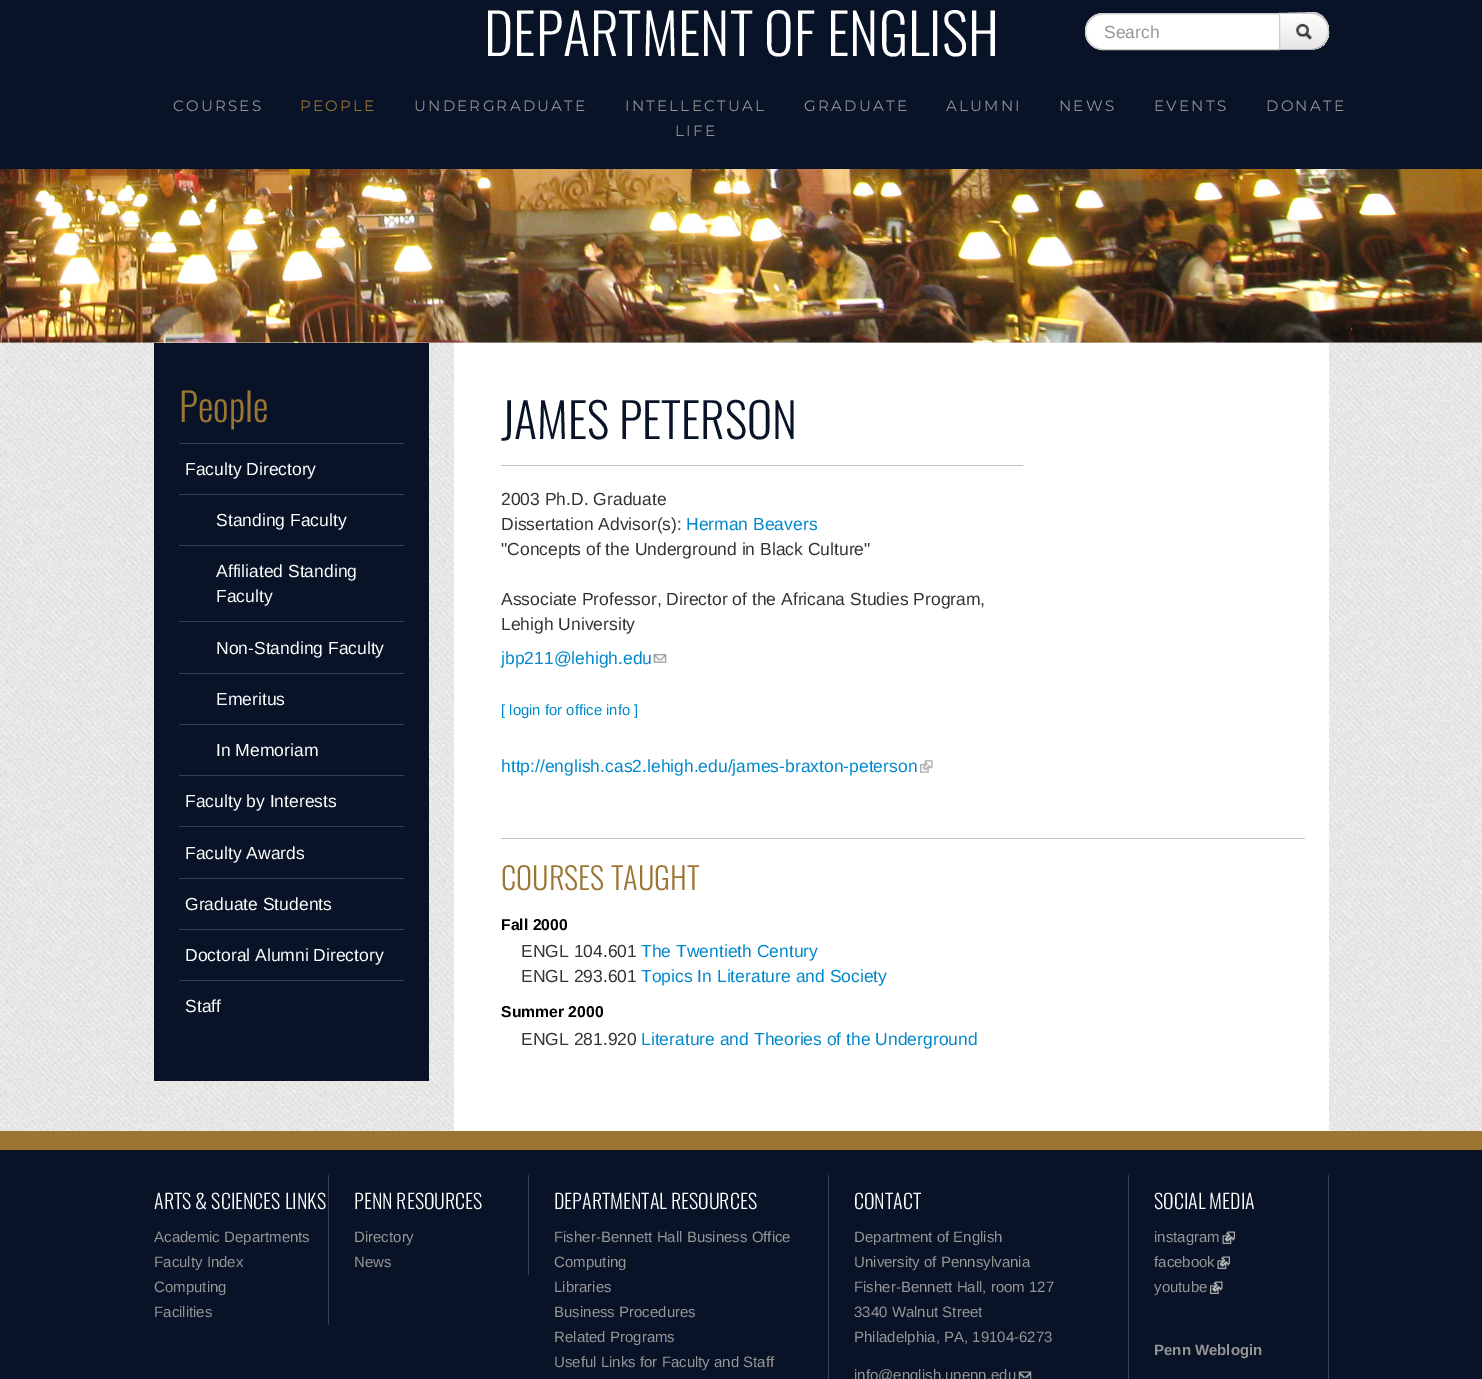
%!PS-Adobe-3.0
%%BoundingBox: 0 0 1482 1379
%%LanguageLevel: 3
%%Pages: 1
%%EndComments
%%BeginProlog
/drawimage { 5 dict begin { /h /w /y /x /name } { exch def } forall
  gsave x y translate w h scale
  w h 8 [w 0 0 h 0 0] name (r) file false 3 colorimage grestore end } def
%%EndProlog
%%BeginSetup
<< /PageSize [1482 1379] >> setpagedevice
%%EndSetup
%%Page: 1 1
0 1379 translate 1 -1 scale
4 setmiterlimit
1 setgray
0 0 1482 1379 rectfill
(images/1.raw) 0 342 1482 789 drawimage
0.031 0.075 0.153 setrgbcolor
0 0 1482 169 rectfill
gsave
newpath 1279 13 moveto 1311 13 lineto 1321 13 1329 21 1329 31 curveto 1329 32 lineto 1329 42 1321 50 1311 50 curveto 1279 50 lineto closepath clip newpath
gsave newpath 1280 14 moveto 1329 14 lineto 1329 49 lineto 1280 49 lineto closepath clip newpath
<< /ShadingType 2 /ColorSpace /DeviceRGB /Coords [1304 14 1304 49] /Extend [true true] /Function << /FunctionType 2 /Domain [0 1] /C0 [1 1 1] /C1 [0.902 0.902 0.902] /N 1 >> >> shfill grestore
grestore
0.8 setgray
newpath 1279 13 moveto 1315 12 lineto 1319 13 1322 15 1324 17 curveto 1323 19 lineto 1320 16 1315 14 1311 14 curveto 1280 14 lineto closepath fill
newpath 1329 35 moveto 1328 39 1326.5 42.5 1323.5 45 curveto 1322.5 44 lineto 1329.5 37.5 1330 25 1322.5 18.5 curveto 1324 17.5 lineto 1329.5 23 1329 28 1329 35 curveto closepath fill
0.702 setgray
newpath 1279 50 moveto 1311 50 lineto 1316 50 1320 48 1324 45 curveto 1323 44 lineto 1320 47 1315 49 1311 49 curveto 1280 49 lineto closepath fill
1 setgray
newpath 1103 13 moveto 1280 13 lineto 1280 50 lineto 1103 50 lineto 1093 50 1085 42 1085 32 curveto 1085 31 lineto 1085 21 1093 13 1103 13 curveto closepath fill
0.925 setgray
newpath 1102 15 moveto 1279 15 lineto 1279 14 lineto 1102 14 lineto 1093 14 1086 21 1086 30 curveto 1086 31 lineto 1086 22 1094 15 1102 15 curveto closepath fill
0.8 setgray
newpath 1103 13.5 moveto 1279.5 13.5 lineto 1279.5 49.5 lineto 1103 49.5 lineto 1093.5 49.5 1085.5 41.5 1085.5 32 curveto 1085.5 31 lineto 1085.5 21.5 1093.5 13.5 1103 13.5 curveto closepath stroke
(images/2.raw) 1296 23 17 18 drawimage
(images/3.raw) 0 169 1482 174 drawimage
0.031 0.075 0.153 setrgbcolor
154 343 275 738 rectfill
0.212 0.247 0.314 setrgbcolor
179 443 225 1 rectfill
179 494 225 1 rectfill
179 545 225 1 rectfill
179 621 225 1 rectfill
179 673 225 1 rectfill
179 724 225 1 rectfill
179 775 225 1 rectfill
179 826 225 1 rectfill
179 878 225 1 rectfill
179 929 225 1 rectfill
179 980 225 1 rectfill
1 setgray
454 343 875 788 rectfill
0.753 setgray
501 465 522 1 rectfill
(images/4.raw) 653 653 14 10 drawimage
(images/5.raw) 920 760 13 13 drawimage
501 838 804 1 rectfill
0.031 0.075 0.153 setrgbcolor
0 1150 1482 229 rectfill
0.612 0.459 0.2 setrgbcolor
0 1131 1482 19 rectfill
0.212 0.247 0.314 setrgbcolor
328 1175 1 150 rectfill
528 1175 1 100 rectfill
828 1175 1 204 rectfill
1128 1175 1 204 rectfill
(images/6.raw) 1018 1371 14 8 drawimage
1328 1175 1 204 rectfill
(images/7.raw) 1222 1231 13 13 drawimage
(images/7.raw) 1217 1256 13 13 drawimage
(images/8.raw) 1210 1281 13 13 drawimage
/Oswald-Light [56.25 0 0 -56.25 0 0] selectfont
1 setgray
484 56 moveto (DEPARTMENT OF ENGLISH) show
/LiberationSans-Regular [17.5 0 0 -17.5 0 0] selectfont
0.588 0.584 0.588 setrgbcolor
1104 38 moveto (Search) show
/Montserrat-Thin [15 0 0 -15 0 0] selectfont
173 111 moveto 2.25 0 (COURSES) ashow
0.612 0.459 0.2 setrgbcolor
300 111 moveto 2.25 0 (PEOPLE) ashow
0.588 0.584 0.588 setrgbcolor
414 111 moveto 2.25 0 (UNDERGRADUATE) ashow
625 111 moveto 2.25 0 (INTELLECTUAL) ashow
675 136 moveto 2.25 0 (LIFE) ashow
804 111 moveto 2.25 0 (GRADUATE) ashow
946 111 moveto 2.25 0 (ALUMNI) ashow
1059 111 moveto 2.25 0 (NEWS) ashow
1154 111 moveto 2.25 0 (EVENTS) ashow
1266 111 moveto 2.25 0 (DONATE) ashow
/Oswald-Light [39 0 0 -39 0 0] selectfont
0.612 0.459 0.2 setrgbcolor
179 422 moveto (People) show
/LiberationSans-Regular [17.5 0 0 -17.5 0 0] selectfont
1 setgray
185 475 moveto (Faculty Directory) show
216 526 moveto (Standing Faculty) show
216 577 moveto (Affiliated Standing) show
216 602 moveto (Faculty) show
216 654 moveto (Non-Standing Faculty) show
216 705 moveto (Emeritus) show
216 756 moveto (In Memoriam) show
185 807 moveto (Faculty by Interests) show
185 859 moveto (Faculty Awards) show
185 910 moveto (Graduate Students) show
185 961 moveto (Doctoral Alumni Directory) show
185 1012 moveto (Staff) show
/Oswald-Light [48 0 0 -48 0 0] selectfont
0.031 0.075 0.153 setrgbcolor
501 439 moveto (JAMES PETERSON) show
/LiberationSans-Regular [17.5 0 0 -17.5 0 0] selectfont
0.2 setgray
501 505 moveto (2003 Ph.D. Graduate) show
501 530 moveto (Dissertation Advisor\(s\):) show
0 0.533 0.8 setrgbcolor
686 530 moveto (Herman Beavers) show
0.2 setgray
501 555 moveto ("Concepts of the Underground in Black Culture") show
501 605 moveto (Associate Professor, Director of the Africana Studies Program,) show
501 630 moveto (Lehigh University) show
0 0.533 0.8 setrgbcolor
501 664 moveto (jbp211@lehigh.edu) show
/LiberationSans-Regular [14.9 0 0 -14.9 0 0] selectfont
501 715 moveto ([ login for office info ]) show
/LiberationSans-Regular [17.5 0 0 -17.5 0 0] selectfont
501 772 moveto (http://english.cas2.lehigh.edu/james-braxton-peterson) show
/Oswald-Light [30.5 0 0 -30.5 0 0] selectfont
0.612 0.459 0.2 setrgbcolor
501 890 moveto (COURSES TAUGHT) show
/LiberationSans-Bold [15.75 0 0 -15.75 0 0] selectfont
0 setgray
501 930 moveto (Fall 2000) show
/LiberationSans-Regular [17.5 0 0 -17.5 0 0] selectfont
0.2 setgray
521 957 moveto (ENGL 104.601) show
0 0.533 0.8 setrgbcolor
641 957 moveto (The Twentieth Century) show
0.2 setgray
521 982 moveto (ENGL 293.601) show
0 0.533 0.8 setrgbcolor
641 982 moveto (Topics In Literature and Society) show
/LiberationSans-Bold [15.75 0 0 -15.75 0 0] selectfont
0 setgray
501 1017 moveto (Summer 2000) show
/LiberationSans-Regular [17.5 0 0 -17.5 0 0] selectfont
0.2 setgray
521 1045 moveto (ENGL 281.920) show
0 0.533 0.8 setrgbcolor
641 1045 moveto (Literature and Theories of the Underground) show
/Oswald-Light [20 0 0 -20 0 0] selectfont
1 setgray
154 1209 moveto (ARTS & SCIENCES LINKS) show
/LiberationSans-Regular [15 0 0 -15 0 0] selectfont
0.588 0.584 0.588 setrgbcolor
154 1242 moveto (Academic Departments) show
154 1267 moveto (Faculty Index) show
154 1292 moveto (Computing) show
154 1317 moveto (Facilities) show
/Oswald-Light [20 0 0 -20 0 0] selectfont
1 setgray
354 1209 moveto (PENN RESOURCES) show
/LiberationSans-Regular [15 0 0 -15 0 0] selectfont
0.588 0.584 0.588 setrgbcolor
354 1242 moveto (Directory) show
354 1267 moveto (News) show
/Oswald-Light [20 0 0 -20 0 0] selectfont
1 setgray
554 1209 moveto (DEPARTMENTAL RESOURCES) show
/LiberationSans-Regular [15 0 0 -15 0 0] selectfont
0.588 0.584 0.588 setrgbcolor
554 1242 moveto (Fisher-Bennett Hall Business Office) show
554 1267 moveto (Computing) show
554 1292 moveto (Libraries) show
554 1317 moveto (Business Procedures) show
554 1342 moveto (Related Programs) show
554 1367 moveto (Useful Links for Faculty and Staff) show
/Oswald-Light [20 0 0 -20 0 0] selectfont
1 setgray
854 1209 moveto (CONTACT) show
/LiberationSans-Regular [15 0 0 -15 0 0] selectfont
0.588 0.584 0.588 setrgbcolor
854 1242 moveto (Department of English) show
854 1267 moveto (University of Pennsylvania) show
854 1292 moveto (Fisher-Bennett Hall, room 127) show
854 1317 moveto (3340 Walnut Street) show
854 1342 moveto (Philadelphia, PA, 19104-6273) show
854 1380 moveto (info@english.upenn.edu) show
/Oswald-Light [20 0 0 -20 0 0] selectfont
1 setgray
1154 1209 moveto (SOCIAL MEDIA) show
/LiberationSans-Regular [15 0 0 -15 0 0] selectfont
0.588 0.584 0.588 setrgbcolor
1154 1242 moveto (instagram) show
1154 1267 moveto (facebook) show
1154 1292 moveto (youtube) show
/LiberationSans-Bold [15 0 0 -15 0 0] selectfont
1154 1355 moveto (Penn Weblogin) show
showpage
%%EOF
